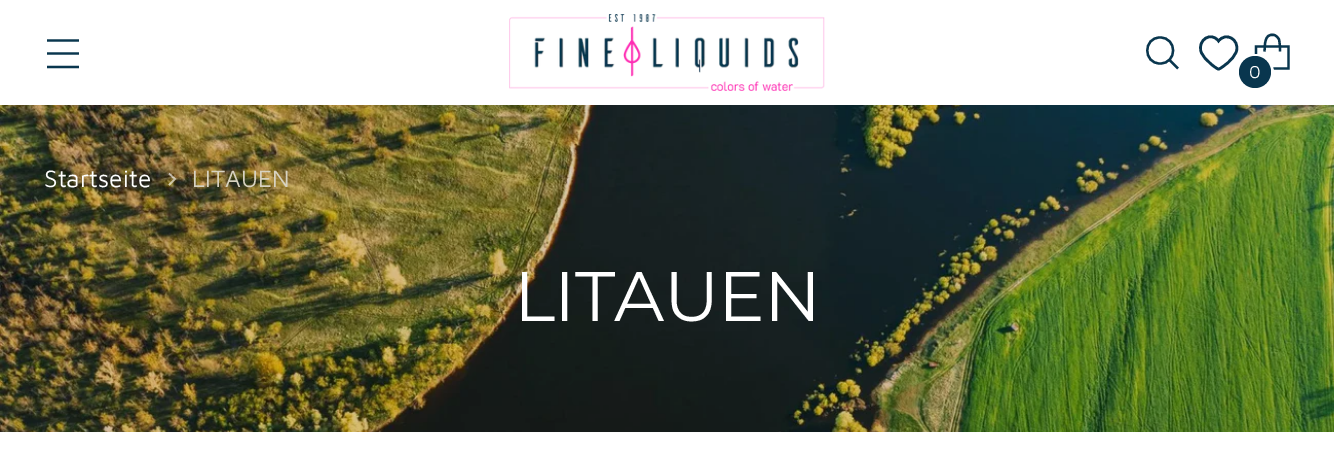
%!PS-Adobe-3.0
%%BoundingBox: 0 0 1334 466
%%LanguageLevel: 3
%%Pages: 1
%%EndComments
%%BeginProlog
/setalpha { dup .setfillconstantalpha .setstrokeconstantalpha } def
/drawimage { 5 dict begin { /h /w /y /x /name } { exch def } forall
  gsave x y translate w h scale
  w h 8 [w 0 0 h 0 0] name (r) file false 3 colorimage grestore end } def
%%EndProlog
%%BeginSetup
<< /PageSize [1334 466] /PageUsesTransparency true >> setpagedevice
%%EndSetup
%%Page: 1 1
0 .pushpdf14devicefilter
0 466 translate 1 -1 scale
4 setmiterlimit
1 setgray
0 0 1334 466 rectfill
0.035 0.212 0.306 setrgbcolor
2.3 setlinewidth
newpath 47 53.5 moveto 79 53.5 lineto 47 40.5 moveto 79 40.5 lineto 47 67 moveto 79 67 lineto stroke
(images/1.raw) 509 14 316 77 drawimage
1 setlinecap
newpath 1160 63.5 moveto 1177.5 63.5 1177.5 37.5 1160 37.5 curveto 1143 37.5 1143 63.5 1160 63.5 curveto closepath stroke
0 setlinecap
newpath 1169.5 60 moveto 1178 68.5 lineto stroke
2.6 setlinewidth
newpath 1218.5 69 moveto 1217 69 1212 65 1210.5 63.5 curveto 1207 60.5 1202.5 56.5 1201 51.5 curveto 1197.5 40 1211 31 1218.5 41 curveto 1226 31.5 1239.5 39.5 1236.5 51 curveto 1235 56 1231 60 1227 63.5 curveto 1226 64 1220.5 69 1218.5 69 curveto closepath stroke
2.3 setlinewidth
2 setlinejoin
newpath 1280 51.5 moveto 1280 47.5 1280 43.5 1279 39.5 curveto 1278 37.5 1276.5 35.5 1274 35 curveto 1264 33 1265 45.5 1264.5 51.5 curveto stroke
0 setlinejoin
newpath 1288.5 68.5 moveto 1288.5 46.5 lineto 1256 46.5 lineto 1256 68.5 lineto closepath stroke
1 setgray
3 setlinewidth
newpath 1255.5 72.5 17 0 360 arc closepath stroke
0.035 0.212 0.306 setrgbcolor
newpath 1255 72 16 0 360 arc closepath fill
(images/2.raw) 0 105 1334 328 drawimage
0.6 setalpha
1 setgray
1.6 setlinewidth
newpath 169 185 moveto 175 179 lineto 169 173.5 lineto stroke
0.8 setalpha
0 432 1334 1 rectfill
/MavenPro-Regular [18 0 0 -18 0 0] selectfont
1 setalpha
1249 78 moveto (0) show
/MavenPro-Regular [24.5 0 0 -24.5 0 0] selectfont
44 187 moveto (Startseite) show
0.843 0.824 0.757 setrgbcolor
192 187 moveto (LITAUEN) show
/Montserrat-Thin [70 0 0 -70 0 0] selectfont
1 setgray
514 321 moveto -0.75 0 (LITAUEN) ashow
.poppdf14devicefilter showpage
%%EOF
